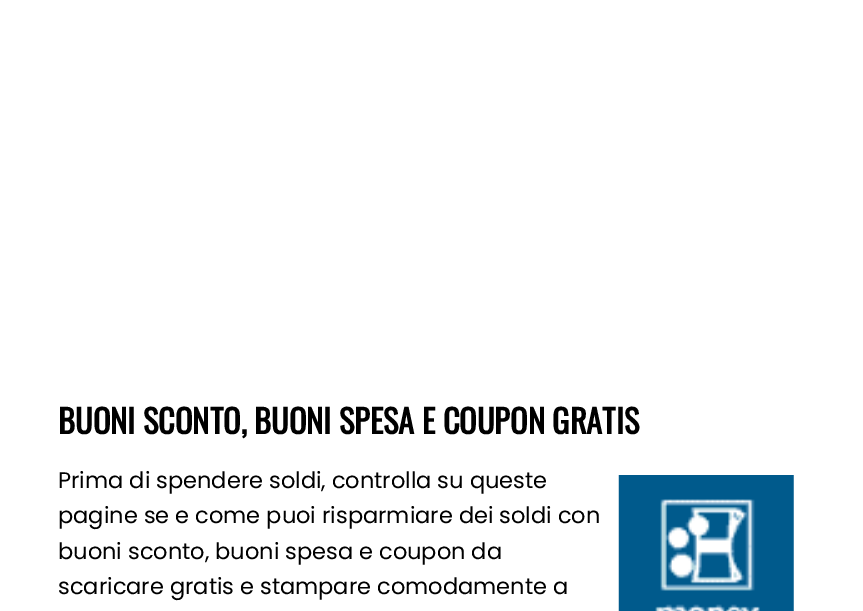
%!PS-Adobe-3.0
%%BoundingBox: 0 0 863 611
%%LanguageLevel: 3
%%Pages: 1
%%EndComments
%%BeginProlog
/drawimage { 5 dict begin { /h /w /y /x /name } { exch def } forall
  gsave x y translate w h scale
  w h 8 [w 0 0 h 0 0] name (r) file false 3 colorimage grestore end } def
%%EndProlog
%%BeginSetup
<< /PageSize [863 611] >> setpagedevice
%%EndSetup
%%Page: 1 1
0 611 translate 1 -1 scale
4 setmiterlimit
1 setgray
0 0 863 611 rectfill
(images/1.raw) 618 475 176 136 drawimage
/Oswald-Bold [32.5 0 0 -32.5 0 0] selectfont
0 setgray
58 434 moveto (BUONI SCONTO, BUONI SPESA E COUPON GRATIS) show
/Poppins-Regular [22.5 0 0 -22.5 0 0] selectfont
58 488 moveto (Prima di spendere soldi, controlla su queste) show
58 523 moveto (pagine se e come puoi risparmiare dei soldi con) show
58 559 moveto (buoni sconto, buoni spesa e coupon da) show
58 594 moveto (scaricare gratis e stampare comodamente a) show
showpage
%%EOF
